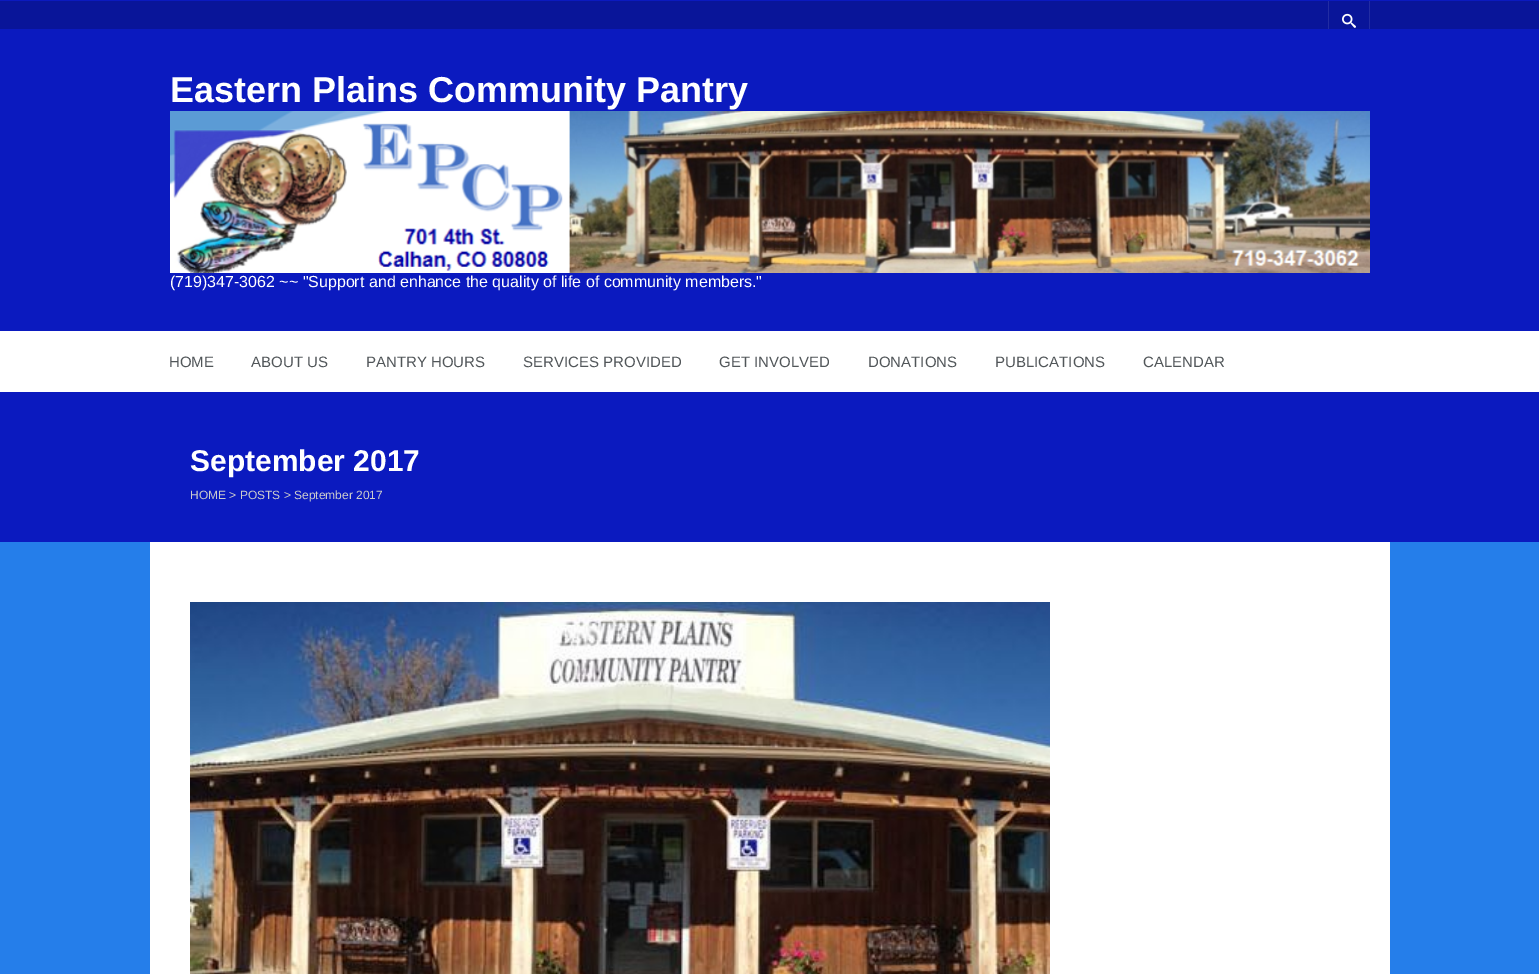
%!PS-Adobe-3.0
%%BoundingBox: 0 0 1539 974
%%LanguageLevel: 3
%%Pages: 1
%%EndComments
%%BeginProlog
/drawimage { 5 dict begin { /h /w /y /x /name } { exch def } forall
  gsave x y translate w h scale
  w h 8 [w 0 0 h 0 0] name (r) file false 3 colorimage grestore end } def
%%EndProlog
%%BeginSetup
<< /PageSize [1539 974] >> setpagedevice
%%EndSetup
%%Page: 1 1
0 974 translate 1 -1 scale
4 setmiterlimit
0.145 0.494 0.918 setrgbcolor
0 0 1539 974 rectfill
0.043 0.102 0.749 setrgbcolor
0 0 1539 542 rectfill
0.035 0.082 0.6 setrgbcolor
0 1 1539 28 rectfill
0.133 0.173 0.639 setrgbcolor
1369 1 1 28 rectfill
1328 1 1 28 rectfill
(images/1.raw) 1342 13 14 15 drawimage
(images/2.raw) 170 111 1200 162 drawimage
1 setgray
0 331 1539 61 rectfill
150 542 1240 432 rectfill
(images/3.raw) 190 602 860 372 drawimage
/LiberationSans-Bold [36 0 0 -36 0 0] selectfont
170 102 moveto (Eastern Plains Community Pantry) show
/LiberationSans-Regular [16 0 0 -16 0 0] selectfont
170 287 moveto (\(719\)347-3062 ~~ "Support and enhance the quality of life of community members.") show
/LiberationSans-Regular [15 0 0 -15 0 0] selectfont
0.318 0.337 0.349 setrgbcolor
169 367 moveto (HOME) show
251 367 moveto (ABOUT US) show
366 367 moveto (PANTRY HOURS) show
523 367 moveto (SERVICES PROVIDED) show
719 367 moveto (GET INVOLVED) show
868 367 moveto (DONATIONS) show
995 367 moveto (PUBLICATIONS) show
1143 367 moveto (CALENDAR) show
/LiberationSans-Bold [30 0 0 -30 0 0] selectfont
1 setgray
190 471 moveto (September 2017) show
/LiberationSans-Regular [12 0 0 -12 0 0] selectfont
0.8 setgray
190 499 moveto (HOME > POSTS > September 2017) show
showpage
%%EOF
